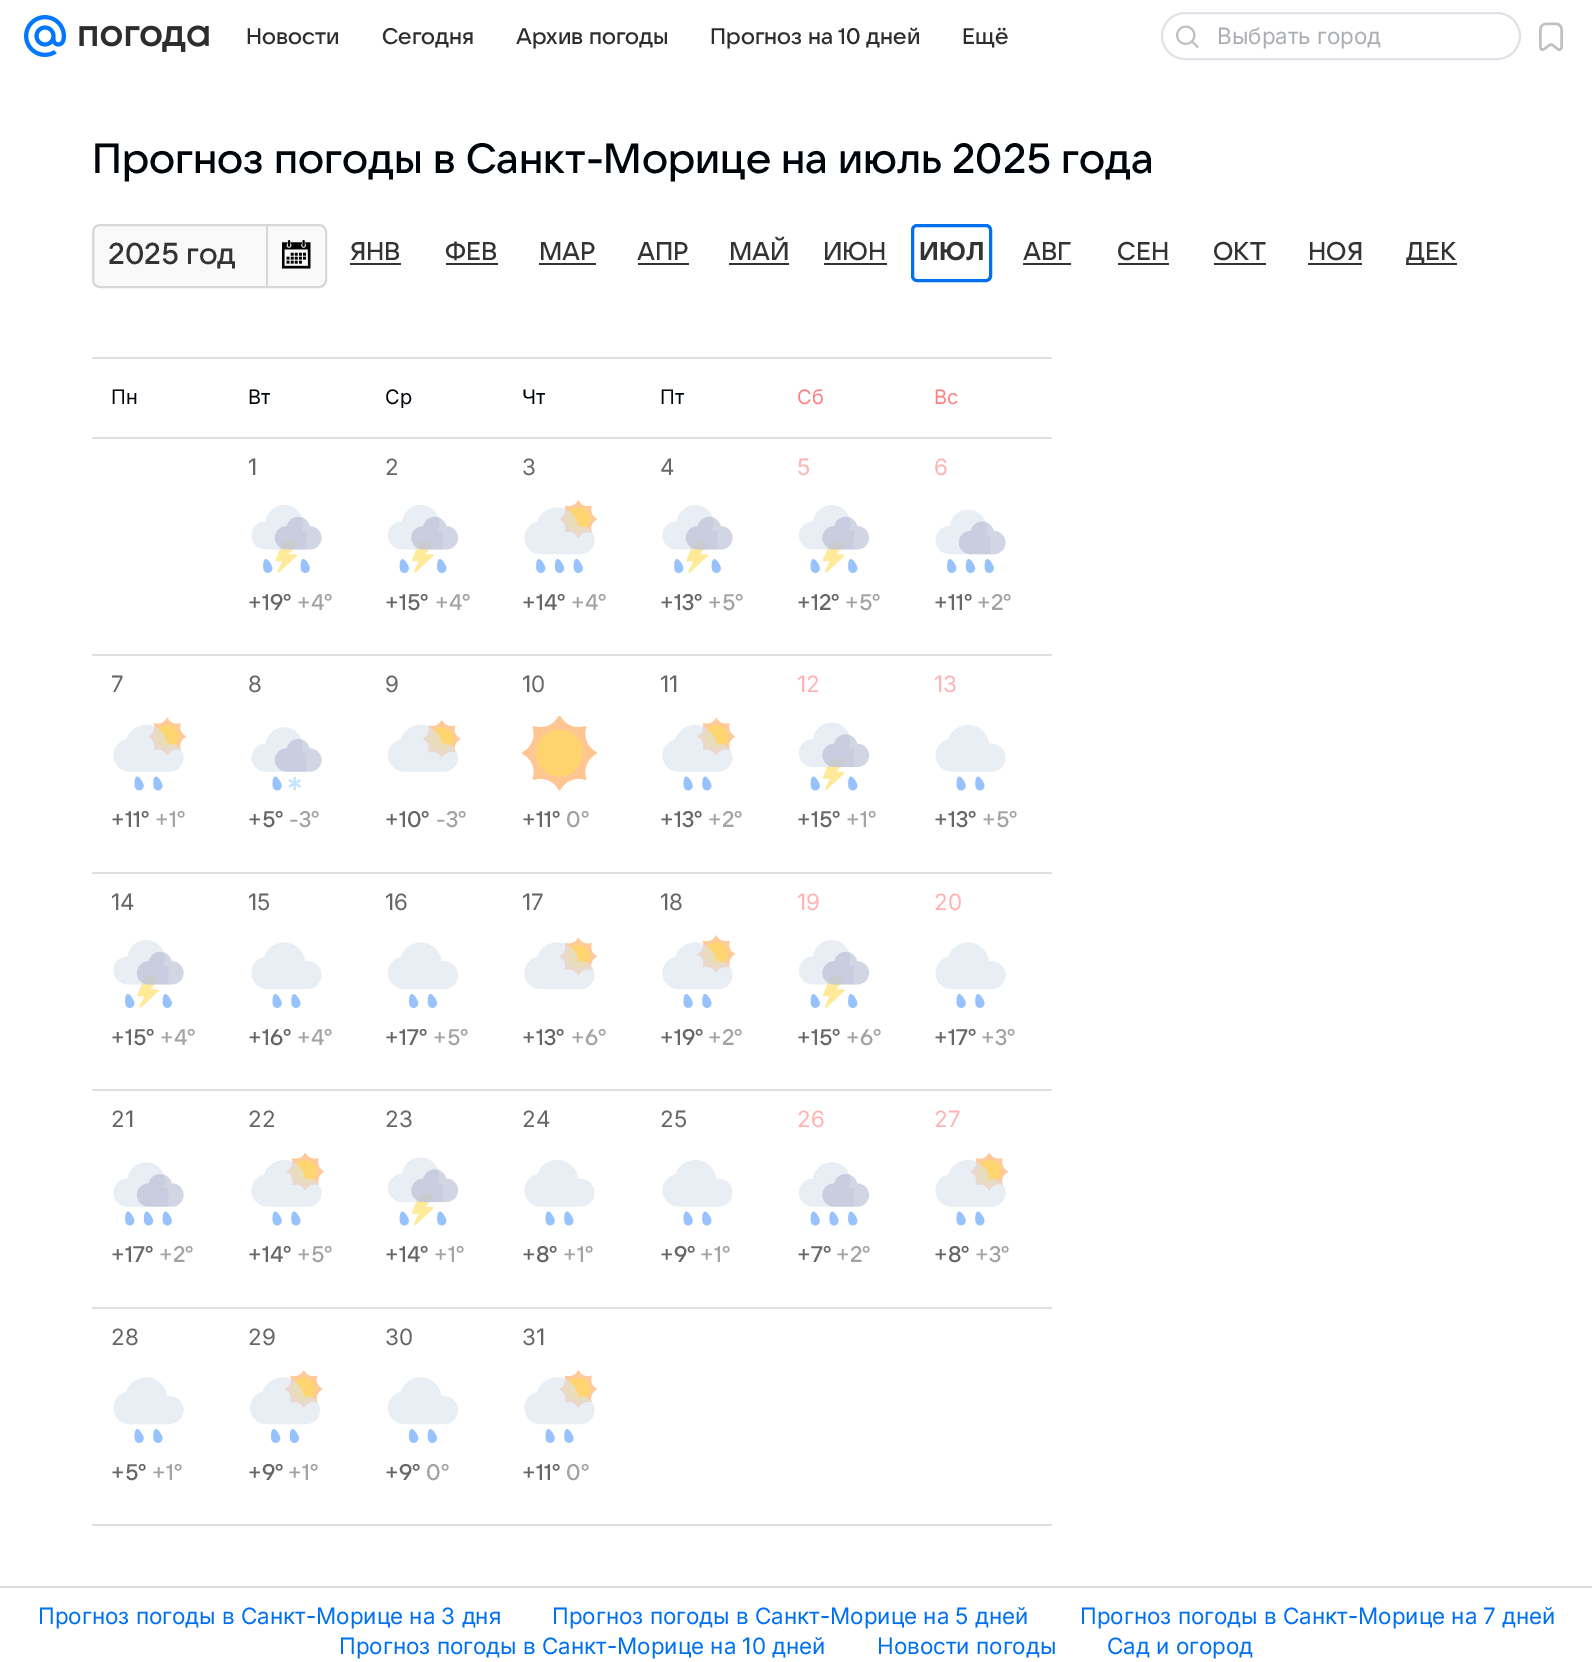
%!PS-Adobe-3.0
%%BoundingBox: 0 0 1592 1662
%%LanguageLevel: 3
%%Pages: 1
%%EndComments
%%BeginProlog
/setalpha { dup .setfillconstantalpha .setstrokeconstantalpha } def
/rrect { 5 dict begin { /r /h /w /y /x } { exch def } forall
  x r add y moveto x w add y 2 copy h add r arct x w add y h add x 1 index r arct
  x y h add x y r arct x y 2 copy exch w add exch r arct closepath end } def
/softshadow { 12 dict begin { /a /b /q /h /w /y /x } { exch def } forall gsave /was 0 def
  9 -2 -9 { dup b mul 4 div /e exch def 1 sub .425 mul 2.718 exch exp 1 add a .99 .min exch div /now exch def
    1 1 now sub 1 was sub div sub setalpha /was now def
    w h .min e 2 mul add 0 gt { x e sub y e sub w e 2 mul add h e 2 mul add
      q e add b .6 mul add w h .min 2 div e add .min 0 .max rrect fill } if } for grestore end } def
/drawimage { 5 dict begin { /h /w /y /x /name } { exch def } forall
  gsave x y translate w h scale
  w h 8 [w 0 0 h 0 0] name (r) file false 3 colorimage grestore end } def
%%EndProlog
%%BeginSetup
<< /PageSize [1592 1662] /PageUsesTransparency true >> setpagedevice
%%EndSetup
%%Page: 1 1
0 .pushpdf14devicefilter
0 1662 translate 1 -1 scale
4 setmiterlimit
1 setgray
0 0 1592 1662 rectfill
(images/1.raw) 24 15 42 42 drawimage
(images/2.raw) 79 25 130 27 drawimage
0.878 0.886 0.91 setrgbcolor
2 setlinewidth
1162 13 358 46 23 rrect stroke
(images/3.raw) 1176 25 23 23 drawimage
(images/4.raw) 1539 22 24 29 drawimage
gsave
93 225 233 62 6 rrect clip newpath
0 setgray
93 228 233 62 8 1.5 0.2 softshadow
grestore
0.976 setgray
93 225 233 62 7 rrect gsave fill grestore
0.843 setgray
stroke
266 225 2 62 rectfill
(images/5.raw) 282 240 29 29 drawimage
0.2 setgray
350 263 51 2 rectfill
446 263 52 2 rectfill
539 263 57 2 rectfill
638 263 51 2 rectfill
729 263 60 2 rectfill
824 263 63 2 rectfill
0 0.439 0.941 setrgbcolor
3 setlinewidth
912.5 225.5 78 55 4.5 rrect stroke
0.2 setgray
1023 263 48 2 rectfill
1118 263 51 2 rectfill
1214 263 52 2 rectfill
1308 263 54 2 rectfill
1406 263 51 2 rectfill
0.882 0.878 0.878 setrgbcolor
92 357 960 2 rectfill
92 437 960 2 rectfill
92 654 960 2 rectfill
(images/6.raw) 251 505 71 68 drawimage
(images/7.raw) 388 505 71 68 drawimage
(images/8.raw) 524 500 73 73 drawimage
(images/6.raw) 662 505 71 68 drawimage
(images/7.raw) 799 505 71 68 drawimage
(images/9.raw) 935 509 71 64 drawimage
92 872 960 2 rectfill
(images/10.raw) 113 717 73 74 drawimage
(images/11.raw) 251 727 71 64 drawimage
(images/12.raw) 388 720 73 52 drawimage
(images/13.raw) 522 716 75 75 drawimage
(images/10.raw) 662 717 73 74 drawimage
(images/14.raw) 799 722 71 69 drawimage
(images/15.raw) 935 725 71 66 drawimage
92 1089 960 2 rectfill
(images/6.raw) 113 940 71 68 drawimage
(images/16.raw) 251 942 71 66 drawimage
(images/17.raw) 388 942 70 66 drawimage
(images/18.raw) 524 937 73 53 drawimage
(images/19.raw) 662 935 73 73 drawimage
(images/7.raw) 799 940 71 68 drawimage
(images/16.raw) 935 942 71 66 drawimage
92 1307 960 2 rectfill
(images/20.raw) 113 1162 71 64 drawimage
(images/10.raw) 251 1152 73 74 drawimage
(images/14.raw) 388 1157 71 69 drawimage
(images/15.raw) 524 1160 71 66 drawimage
(images/15.raw) 662 1160 71 66 drawimage
(images/21.raw) 799 1162 71 64 drawimage
(images/10.raw) 935 1152 73 74 drawimage
92 1524 960 2 rectfill
(images/16.raw) 113 1377 71 66 drawimage
(images/22.raw) 250 1370 73 73 drawimage
(images/17.raw) 388 1377 70 66 drawimage
(images/19.raw) 524 1370 73 73 drawimage
0.871 setgray
0 1586 1592 2 rectfill
/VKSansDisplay-Medium [22.5 0 0 -22.5 0 0] selectfont
0.173 0.176 0.18 setrgbcolor
246 44 moveto (Новости) show
382 44 moveto (Сегодня) show
516 44 moveto (Архив погоды) show
710 44 moveto (Прогноз на 10 дней) show
962 44 moveto (Ещё) show
/Inter-Regular [22.5 0 0 -22.5 0 0] selectfont
0.667 0.678 0.702 setrgbcolor
1217 44 moveto (Выбрать город) show
/VKSansDisplay-Medium [42 0 0 -42 0 0] selectfont
0 0.02 0.047 setrgbcolor
92 173 moveto (Прогноз погоды в Санкт-Морице на июль 2025 года) show
/VKSansDisplay-Medium [30 0 0 -30 0 0] selectfont
0.2 setgray
108 264 moveto (2025 год) show
/VKSansDisplay-Medium [25.5 0 0 -25.5 0 0] selectfont
350 260 moveto (ЯНВ) show
445 260 moveto (ФЕВ) show
539 260 moveto (МАР) show
637 260 moveto (АПР) show
729 260 moveto (МАЙ) show
823 260 moveto (ИЮН) show
/VKSansDisplay-Bold [25.5 0 0 -25.5 0 0] selectfont
919 260 moveto (ИЮЛ) show
/VKSansDisplay-Medium [25.5 0 0 -25.5 0 0] selectfont
1023 260 moveto (АВГ) show
1117 260 moveto (СЕН) show
1213 260 moveto (ОКТ) show
1308 260 moveto (НОЯ) show
1406 260 moveto (ДЕК) show
/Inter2-Regular [20 0 0 -20 0 0] selectfont
0 0.02 0.047 setrgbcolor
111 404 moveto (Пн) show
248 404 moveto (Вт) show
385 404 moveto (Ср) show
522 404 moveto (Чт) show
660 404 moveto (Пт) show
1 0.502 0.502 setrgbcolor
797 404 moveto (Сб) show
934 404 moveto (Вс) show
/Inter-Regular [22.5 0 0 -22.5 0 0] selectfont
0.4 setgray
248 475 moveto (1) show
/VKSansDisplay-Medium [22.5 0 0 -22.5 0 0] selectfont
248 610 moveto (+19°) show
0.639 setgray
297 610 moveto (+4°) show
/Inter-Regular [22.5 0 0 -22.5 0 0] selectfont
0.4 setgray
385 475 moveto (2) show
/VKSansDisplay-Medium [22.5 0 0 -22.5 0 0] selectfont
385 610 moveto (+15°) show
0.639 setgray
435 610 moveto (+4°) show
/Inter-Regular [22.5 0 0 -22.5 0 0] selectfont
0.4 setgray
522 475 moveto (3) show
/VKSansDisplay-Medium [22.5 0 0 -22.5 0 0] selectfont
522 610 moveto (+14°) show
0.639 setgray
571 610 moveto (+4°) show
/Inter-Regular [22.5 0 0 -22.5 0 0] selectfont
0.4 setgray
660 475 moveto (4) show
/VKSansDisplay-Medium [22.5 0 0 -22.5 0 0] selectfont
660 610 moveto (+13°) show
0.639 setgray
708 610 moveto (+5°) show
/Inter-Regular [22.5 0 0 -22.5 0 0] selectfont
1 0.702 0.702 setrgbcolor
797 475 moveto (5) show
/VKSansDisplay-Medium [22.5 0 0 -22.5 0 0] selectfont
0.4 setgray
797 610 moveto (+12°) show
0.639 setgray
845 610 moveto (+5°) show
/Inter-Regular [22.5 0 0 -22.5 0 0] selectfont
1 0.702 0.702 setrgbcolor
934 475 moveto (6) show
/VKSansDisplay-Medium [22.5 0 0 -22.5 0 0] selectfont
0.4 setgray
934 610 moveto (+11°) show
0.639 setgray
977 610 moveto (+2°) show
/Inter-Regular [22.5 0 0 -22.5 0 0] selectfont
0.4 setgray
111 692 moveto (7) show
/VKSansDisplay-Medium [22.5 0 0 -22.5 0 0] selectfont
111 827 moveto (+11°) show
0.639 setgray
155 827 moveto (+1°) show
/Inter-Regular [22.5 0 0 -22.5 0 0] selectfont
0.4 setgray
248 692 moveto (8) show
/VKSansDisplay-Medium [22.5 0 0 -22.5 0 0] selectfont
248 827 moveto (+5°) show
0.639 setgray
289 827 moveto (-3°) show
/Inter-Regular [22.5 0 0 -22.5 0 0] selectfont
0.4 setgray
385 692 moveto (9) show
/VKSansDisplay-Medium [22.5 0 0 -22.5 0 0] selectfont
385 827 moveto (+10°) show
0.639 setgray
436 827 moveto (-3°) show
/Inter-Regular [22.5 0 0 -22.5 0 0] selectfont
0.4 setgray
522 692 moveto (10) show
/VKSansDisplay-Medium [22.5 0 0 -22.5 0 0] selectfont
522 827 moveto (+11°) show
0.639 setgray
566 827 moveto (0°) show
/Inter-Regular [22.5 0 0 -22.5 0 0] selectfont
0.4 setgray
660 692 moveto (11) show
/VKSansDisplay-Medium [22.5 0 0 -22.5 0 0] selectfont
660 827 moveto (+13°) show
0.639 setgray
708 827 moveto (+2°) show
/Inter-Regular [22.5 0 0 -22.5 0 0] selectfont
1 0.702 0.702 setrgbcolor
797 692 moveto (12) show
/VKSansDisplay-Medium [22.5 0 0 -22.5 0 0] selectfont
0.4 setgray
797 827 moveto (+15°) show
0.639 setgray
846 827 moveto (+1°) show
/Inter-Regular [22.5 0 0 -22.5 0 0] selectfont
1 0.702 0.702 setrgbcolor
934 692 moveto (13) show
/VKSansDisplay-Medium [22.5 0 0 -22.5 0 0] selectfont
0.4 setgray
934 827 moveto (+13°) show
0.639 setgray
982 827 moveto (+5°) show
/Inter-Regular [22.5 0 0 -22.5 0 0] selectfont
0.4 setgray
111 910 moveto (14) show
/VKSansDisplay-Medium [22.5 0 0 -22.5 0 0] selectfont
111 1045 moveto (+15°) show
0.639 setgray
160 1045 moveto (+4°) show
/Inter-Regular [22.5 0 0 -22.5 0 0] selectfont
0.4 setgray
248 910 moveto (15) show
/VKSansDisplay-Medium [22.5 0 0 -22.5 0 0] selectfont
248 1045 moveto (+16°) show
0.639 setgray
297 1045 moveto (+4°) show
/Inter-Regular [22.5 0 0 -22.5 0 0] selectfont
0.4 setgray
385 910 moveto (16) show
/VKSansDisplay-Medium [22.5 0 0 -22.5 0 0] selectfont
385 1045 moveto (+17°) show
0.639 setgray
433 1045 moveto (+5°) show
/Inter-Regular [22.5 0 0 -22.5 0 0] selectfont
0.4 setgray
522 910 moveto (17) show
/VKSansDisplay-Medium [22.5 0 0 -22.5 0 0] selectfont
522 1045 moveto (+13°) show
0.639 setgray
571 1045 moveto (+6°) show
/Inter-Regular [22.5 0 0 -22.5 0 0] selectfont
0.4 setgray
660 910 moveto (18) show
/VKSansDisplay-Medium [22.5 0 0 -22.5 0 0] selectfont
660 1045 moveto (+19°) show
0.639 setgray
708 1045 moveto (+2°) show
/Inter-Regular [22.5 0 0 -22.5 0 0] selectfont
1 0.702 0.702 setrgbcolor
797 910 moveto (19) show
/VKSansDisplay-Medium [22.5 0 0 -22.5 0 0] selectfont
0.4 setgray
797 1045 moveto (+15°) show
0.639 setgray
846 1045 moveto (+6°) show
/Inter-Regular [22.5 0 0 -22.5 0 0] selectfont
1 0.702 0.702 setrgbcolor
934 910 moveto (20) show
/VKSansDisplay-Medium [22.5 0 0 -22.5 0 0] selectfont
0.4 setgray
934 1045 moveto (+17°) show
0.639 setgray
981 1045 moveto (+3°) show
/Inter-Regular [22.5 0 0 -22.5 0 0] selectfont
0.4 setgray
111 1127 moveto (21) show
/VKSansDisplay-Medium [22.5 0 0 -22.5 0 0] selectfont
111 1262 moveto (+17°) show
0.639 setgray
159 1262 moveto (+2°) show
/Inter-Regular [22.5 0 0 -22.5 0 0] selectfont
0.4 setgray
248 1127 moveto (22) show
/VKSansDisplay-Medium [22.5 0 0 -22.5 0 0] selectfont
248 1262 moveto (+14°) show
0.639 setgray
297 1262 moveto (+5°) show
/Inter-Regular [22.5 0 0 -22.5 0 0] selectfont
0.4 setgray
385 1127 moveto (23) show
/VKSansDisplay-Medium [22.5 0 0 -22.5 0 0] selectfont
385 1262 moveto (+14°) show
0.639 setgray
434 1262 moveto (+1°) show
/Inter-Regular [22.5 0 0 -22.5 0 0] selectfont
0.4 setgray
522 1127 moveto (24) show
/VKSansDisplay-Medium [22.5 0 0 -22.5 0 0] selectfont
522 1262 moveto (+8°) show
0.639 setgray
563 1262 moveto (+1°) show
/Inter-Regular [22.5 0 0 -22.5 0 0] selectfont
0.4 setgray
660 1127 moveto (25) show
/VKSansDisplay-Medium [22.5 0 0 -22.5 0 0] selectfont
660 1262 moveto (+9°) show
0.639 setgray
700 1262 moveto (+1°) show
/Inter-Regular [22.5 0 0 -22.5 0 0] selectfont
1 0.702 0.702 setrgbcolor
797 1127 moveto (26) show
/VKSansDisplay-Medium [22.5 0 0 -22.5 0 0] selectfont
0.4 setgray
797 1262 moveto (+7°) show
0.639 setgray
836 1262 moveto (+2°) show
/Inter-Regular [22.5 0 0 -22.5 0 0] selectfont
1 0.702 0.702 setrgbcolor
934 1127 moveto (27) show
/VKSansDisplay-Medium [22.5 0 0 -22.5 0 0] selectfont
0.4 setgray
934 1262 moveto (+8°) show
0.639 setgray
975 1262 moveto (+3°) show
/Inter-Regular [22.5 0 0 -22.5 0 0] selectfont
0.4 setgray
111 1345 moveto (28) show
/VKSansDisplay-Medium [22.5 0 0 -22.5 0 0] selectfont
111 1480 moveto (+5°) show
0.639 setgray
152 1480 moveto (+1°) show
/Inter-Regular [22.5 0 0 -22.5 0 0] selectfont
0.4 setgray
248 1345 moveto (29) show
/VKSansDisplay-Medium [22.5 0 0 -22.5 0 0] selectfont
248 1480 moveto (+9°) show
0.639 setgray
288 1480 moveto (+1°) show
/Inter-Regular [22.5 0 0 -22.5 0 0] selectfont
0.4 setgray
385 1345 moveto (30) show
/VKSansDisplay-Medium [22.5 0 0 -22.5 0 0] selectfont
385 1480 moveto (+9°) show
0.639 setgray
426 1480 moveto (0°) show
/Inter-Regular [22.5 0 0 -22.5 0 0] selectfont
0.4 setgray
522 1345 moveto (31) show
/VKSansDisplay-Medium [22.5 0 0 -22.5 0 0] selectfont
522 1480 moveto (+11°) show
0.639 setgray
566 1480 moveto (0°) show
/Inter-Regular [22.5 0 0 -22.5 0 0] selectfont
0 0.439 0.941 setrgbcolor
38 1624 moveto (Прогноз погоды в Санкт-Морице на 3 дня) show
552 1624 moveto (Прогноз погоды в Санкт-Морице на 5 дней) show
1080 1624 moveto (Прогноз погоды в Санкт-Морице на 7 дней) show
339 1654 moveto (Прогноз погоды в Санкт-Морице на 10 дней) show
877 1654 moveto (Новости погоды) show
1107 1654 moveto (Сад и огород) show
.poppdf14devicefilter showpage
%%EOF
